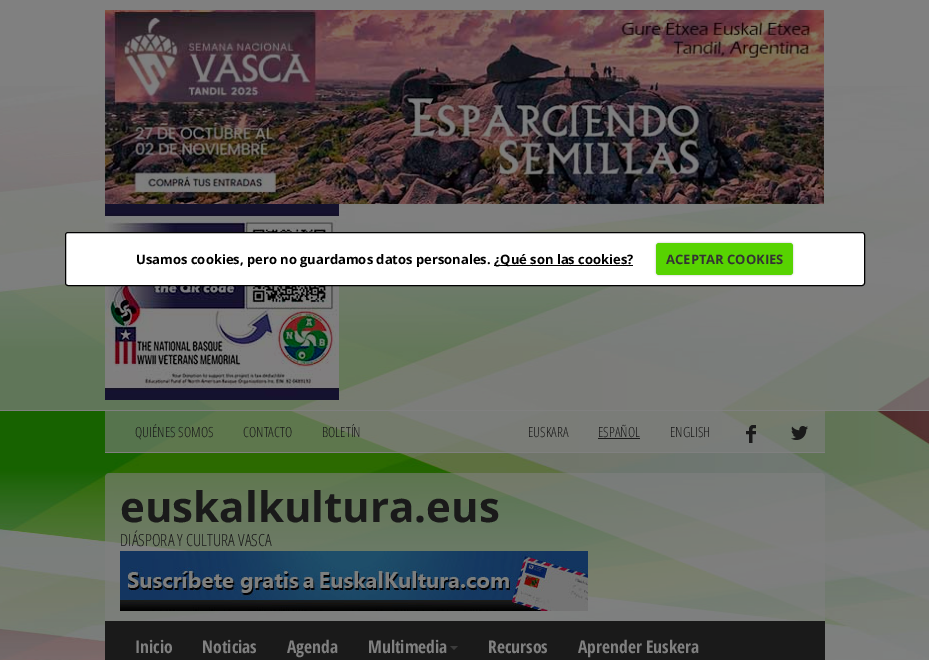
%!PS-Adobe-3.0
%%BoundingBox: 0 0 929 660
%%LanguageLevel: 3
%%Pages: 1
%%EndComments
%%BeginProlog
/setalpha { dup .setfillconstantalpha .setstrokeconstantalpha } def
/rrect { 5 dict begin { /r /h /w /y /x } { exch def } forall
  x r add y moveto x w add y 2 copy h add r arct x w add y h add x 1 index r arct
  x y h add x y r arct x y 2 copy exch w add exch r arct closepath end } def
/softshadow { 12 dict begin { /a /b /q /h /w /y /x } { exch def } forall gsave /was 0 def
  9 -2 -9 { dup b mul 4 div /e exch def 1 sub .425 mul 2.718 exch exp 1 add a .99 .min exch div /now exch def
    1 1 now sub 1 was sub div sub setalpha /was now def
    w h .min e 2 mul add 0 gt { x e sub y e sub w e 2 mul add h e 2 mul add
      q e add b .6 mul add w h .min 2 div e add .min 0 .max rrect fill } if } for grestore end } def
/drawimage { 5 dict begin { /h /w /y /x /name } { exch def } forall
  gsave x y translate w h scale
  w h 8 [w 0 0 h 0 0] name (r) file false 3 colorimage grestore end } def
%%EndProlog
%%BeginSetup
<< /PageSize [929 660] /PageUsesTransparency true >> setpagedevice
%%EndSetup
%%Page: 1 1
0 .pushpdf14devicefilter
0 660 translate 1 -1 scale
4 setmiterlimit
0.502 setgray
0 0 929 660 rectfill
(images/1.raw) 0 86 929 324 drawimage
(images/2.raw) 105 10 719 194 drawimage
(images/3.raw) 105 204 234 196 drawimage
1 setgray
65.5 232.5 799 53 2.5 rrect gsave fill grestore
0 setgray
stroke
494 265 139 1 rectfill
656 243 137 32 3 1 0.25 softshadow
0.341 0.827 0.004 setrgbcolor
656 243 137 32 3 rrect fill
(images/4.raw) 0 411 929 249 drawimage
0.6 setalpha
0.502 setgray
105 411 720 41 rectfill
1 setalpha
105 452 720 1 rectfill
0.102 setgray
598 438 42 1 rectfill
(images/5.raw) 746 425 10 18 drawimage
(images/6.raw) 791 426 17 14 drawimage
0.6 setalpha
0.502 setgray
newpath 109 473 moveto 821 473 lineto 823 473 825 475 825 477 curveto 825 621 lineto 105 621 lineto 105 477 lineto 105 475 107 473 109 473 curveto closepath fill
1 setalpha
(images/7.raw) 120 551 468 60 drawimage
0.102 setgray
105 621 720 39 rectfill
0.235 setgray
newpath 450 646 moveto 458 646 lineto 454 650 lineto closepath fill
/OpenSans-Bold [13 0 0 -13 0 0] selectfont
0 setgray
136 264 moveto (Usamos cookies, pero no guardamos datos personales.) show
494 264 moveto (¿Qué son las cookies?) show
0.2 setgray
666 264 moveto (ACEPTAR COOKIES) show
/OpenSansCondensed-Light [14 0 0 -14 0 0] selectfont
0.102 setgray
135 437 moveto (QUIÉNES SOMOS) show
243 437 moveto (CONTACTO) show
322 437 moveto (BOLETÍN) show
528 437 moveto (EUSKARA) show
598 437 moveto (ESPAÑOL) show
670 437 moveto (ENGLISH) show
/OpenSans-Bold [42 0 0 -42 0 0] selectfont
120 522 moveto (euskalkultura.eus) show
/OpenSansCondensed-Light [16.75 0 0 -16.75 0 0] selectfont
120 546 moveto (DIÁSPORA Y CULTURA VASCA) show
/OpenSansCondensed-Bold [17.5 0 0 -17.5 0 0] selectfont
0.502 setgray
135 653 moveto (Inicio) show
202 653 moveto (Noticias) show
287 653 moveto (Agenda) show
368 653 moveto (Multimedia) show
488 653 moveto (Recursos) show
578 653 moveto (Aprender Euskera) show
.poppdf14devicefilter showpage
%%EOF
